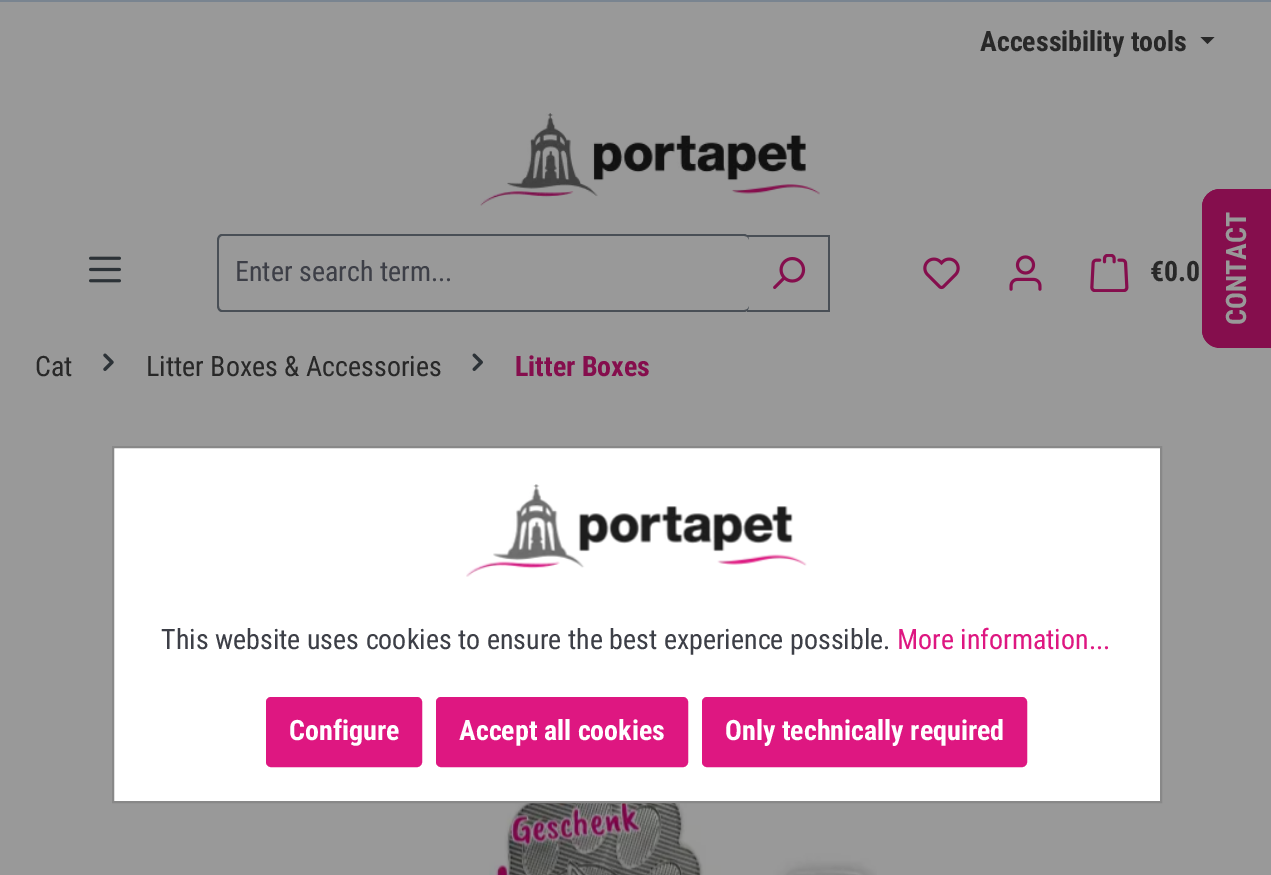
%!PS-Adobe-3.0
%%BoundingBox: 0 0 1271 875
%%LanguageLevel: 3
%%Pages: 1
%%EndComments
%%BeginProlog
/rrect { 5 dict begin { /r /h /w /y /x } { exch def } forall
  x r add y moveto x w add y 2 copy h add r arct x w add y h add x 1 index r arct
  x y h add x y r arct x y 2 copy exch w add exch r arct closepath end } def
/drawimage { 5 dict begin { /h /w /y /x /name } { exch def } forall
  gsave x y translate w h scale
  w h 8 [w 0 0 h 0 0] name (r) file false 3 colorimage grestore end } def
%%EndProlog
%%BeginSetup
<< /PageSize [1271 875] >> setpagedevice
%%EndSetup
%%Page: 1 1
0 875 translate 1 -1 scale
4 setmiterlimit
0.6 setgray
0 0 1271 875 rectfill
0.157 setgray
newpath 1200.5 37 moveto 1214.5 37 lineto 1207.5 44 lineto closepath fill
(images/1.raw) 480 113 340 93 drawimage
(images/2.raw) 89 256 32 27 drawimage
0.286 0.31 0.337 setrgbcolor
newpath 222 234 moveto 744 234 lineto 747 234 749 237 749 240 curveto 749 306 lineto 749 309 747 312 744 312 curveto 222 312 lineto 219 312 217 309 217 306 curveto 217 240 lineto 217 237 219 234 222 234 curveto closepath 222 236 moveto 744 236 lineto 747 236 749 238 749 240 curveto 749 306 lineto 749 308 747 310 744 310 curveto 222 310 lineto 220 310 219 308 219 306 curveto 219 240 lineto 219 238 220 236 222 236 curveto closepath eofill
747 235 83 2 rectfill
828 235 2 77 rectfill
747 310 83 2 rectfill
(images/3.raw) 773 257 33 32 drawimage
(images/4.raw) 923 257 37 33 drawimage
(images/5.raw) 1009 255 33 36 drawimage
(images/6.raw) 1090 254 39 38 drawimage
0.522 0.055 0.302 setrgbcolor
newpath 1202 330 moveto 1202 207 lineto 1202 197 1210 189 1220 189 curveto 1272 189 lineto 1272 348 lineto 1220 348 lineto 1210 348 1202 340 1202 330 curveto closepath fill
1.8 setlinewidth
newpath 1203 330 moveto 1203 206.5 lineto 1203 197.5 1210.5 190 1220 190 curveto 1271.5 190 lineto 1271.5 346.5 lineto 1220 346.5 lineto 1210.5 346.5 1203 339 1203 330 curveto closepath stroke
(images/7.raw) 103 353 11 18 drawimage
(images/8.raw) 472 353 11 18 drawimage
(images/9.raw) 489 803 388 72 drawimage
0.475 0.518 0.565 setrgbcolor
0 0 1271 2 rectfill
1 setgray
newpath 113 447 moveto 1161 447 lineto 1161 802 lineto 113 802 lineto closepath gsave fill grestore
0.533 setgray
2 setlinewidth
stroke
(images/10.raw) 466 484 341 93 drawimage
0.871 0.09 0.506 setrgbcolor
267 698 154 68 4 rrect gsave fill grestore
stroke
437 698 250 68 4 rrect gsave fill grestore
stroke
703 698 323 68 4 rrect gsave fill grestore
stroke
/RobotoCondensed-Bold [28 0 0 -28 0 0] selectfont
0.157 setgray
980 51 moveto (Accessibility tools) show
/RobotoCondensed-Regular [28 0 0 -28 0 0] selectfont
0.239 0.247 0.278 setrgbcolor
235 281 moveto (Enter search term...) show
/RobotoCondensed-Bold [28 0 0 -28 0 0] selectfont
0.157 setgray
1150 281 moveto (€0.0) show
0.6 setgray
gsave 1246 325 translate -90 rotate 0 0 moveto (CONTACT) show grestore
/RobotoCondensed-Regular [28 0 0 -28 0 0] selectfont
0.157 setgray
35 376 moveto (Cat) show
146 376 moveto (Litter Boxes & Accessories) show
/RobotoCondensed-Bold [28 0 0 -28 0 0] selectfont
0.522 0.055 0.302 setrgbcolor
515 376 moveto (Litter Boxes) show
/RobotoCondensed-Regular [28 0 0 -28 0 0] selectfont
0.239 0.247 0.278 setrgbcolor
161 649 moveto (This website uses cookies to ensure the best experience possible.) show
0.871 0.09 0.506 setrgbcolor
897 649 moveto (More information...) show
/RobotoCondensed-Bold [28 0 0 -28 0 0] selectfont
1 setgray
289 740 moveto (Configure) show
459 740 moveto (Accept all cookies) show
725 740 moveto (Only technically required) show
showpage
%%EOF
